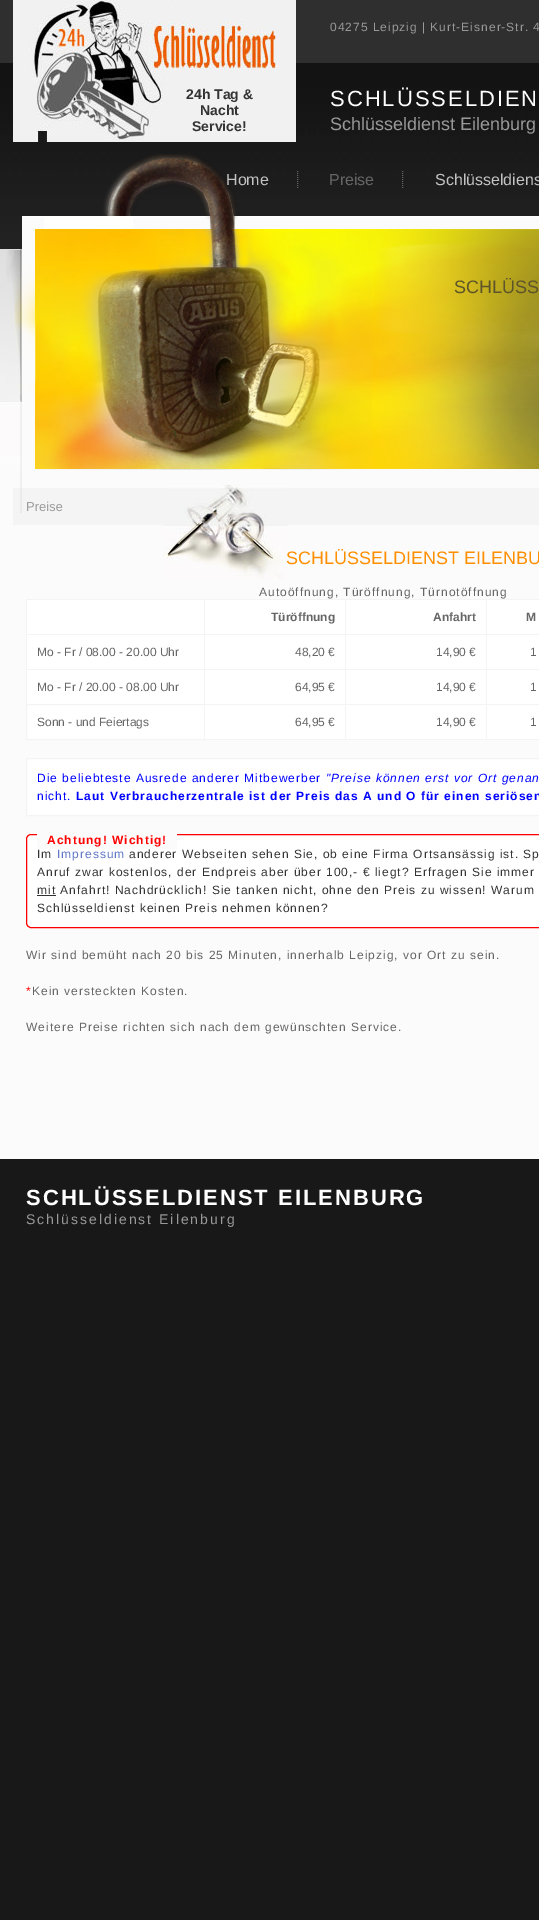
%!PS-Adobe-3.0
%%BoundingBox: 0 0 539 1920
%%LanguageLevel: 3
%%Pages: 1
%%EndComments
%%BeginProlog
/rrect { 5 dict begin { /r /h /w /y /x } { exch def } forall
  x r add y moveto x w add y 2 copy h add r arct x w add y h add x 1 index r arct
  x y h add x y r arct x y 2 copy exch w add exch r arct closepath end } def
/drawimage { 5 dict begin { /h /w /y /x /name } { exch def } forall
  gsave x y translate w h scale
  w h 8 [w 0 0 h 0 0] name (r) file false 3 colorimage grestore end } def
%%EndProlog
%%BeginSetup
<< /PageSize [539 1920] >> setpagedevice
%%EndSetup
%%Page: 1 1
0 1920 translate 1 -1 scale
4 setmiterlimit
0.094 setgray
0 0 539 1920 rectfill
(images/1.raw) 0 0 539 465 drawimage
0.945 setgray
13 0 283 142 rectfill
(images/2.raw) 29 0 247 142 drawimage
0.988 0.984 0.984 setrgbcolor
0 465 539 694 rectfill
0.953 0.957 0.953 setrgbcolor
13 488 526 37 rectfill
(images/3.raw) 163 485 124 94 drawimage
1 setgray
27 600 177 34 rectfill
0.953 0.957 0.953 setrgbcolor
26 599 513 1 rectfill
204 599 1 35 rectfill
26 599 1 35 rectfill
1 setgray
205 600 140 34 rectfill
0.953 0.957 0.953 setrgbcolor
345 599 1 35 rectfill
1 setgray
346 600 140 34 rectfill
0.953 0.957 0.953 setrgbcolor
486 599 1 35 rectfill
1 setgray
487 600 52 34 rectfill
27 635 177 34 rectfill
0.953 0.957 0.953 setrgbcolor
26 634 513 1 rectfill
204 634 1 35 rectfill
26 634 1 35 rectfill
1 setgray
205 635 140 34 rectfill
0.953 0.957 0.953 setrgbcolor
345 634 1 35 rectfill
1 setgray
346 635 140 34 rectfill
0.953 0.957 0.953 setrgbcolor
486 634 1 35 rectfill
1 setgray
487 635 52 34 rectfill
27 670 177 34 rectfill
0.953 0.957 0.953 setrgbcolor
26 669 513 1 rectfill
204 669 1 35 rectfill
26 669 1 35 rectfill
1 setgray
205 670 140 34 rectfill
0.953 0.957 0.953 setrgbcolor
345 669 1 35 rectfill
1 setgray
346 670 140 34 rectfill
0.953 0.957 0.953 setrgbcolor
486 669 1 35 rectfill
1 setgray
487 670 52 34 rectfill
newpath 26.5 704.5 moveto 204.5 704.5 lineto 204.5 739.5 lineto 26.5 739.5 lineto closepath gsave fill grestore
0.953 0.957 0.953 setrgbcolor
stroke
1 setgray
205 705 140 34 rectfill
0.953 0.957 0.953 setrgbcolor
205 704 334 1 rectfill
345 704 1 36 rectfill
205 739 141 1 rectfill
1 setgray
346 705 140 34 rectfill
0.953 0.957 0.953 setrgbcolor
486 704 1 36 rectfill
346 739 193 1 rectfill
1 setgray
487 705 52 34 rectfill
newpath 26.5 758.5 moveto 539.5 758.5 lineto 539.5 815.5 lineto 26.5 815.5 lineto closepath gsave fill grestore
0.953 0.957 0.953 setrgbcolor
stroke
1 setgray
26.5 834.5 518 93 4.5 rrect gsave fill grestore
1 0 0 setrgbcolor
stroke
0.988 0.984 0.984 setrgbcolor
37 834 140 15 rectfill
0.2 setgray
37 895 19 1 rectfill
/LiberationSans-Regular [12 0 0 -12 0 0] selectfont
0.6 setgray
330 31 moveto 1 0 (04275 Leipzig | Kurt-Eisner-Str. 4) ashow
/LiberationSans-Bold [14 0 0 -14 0 0] selectfont
0.2 setgray
186 99 moveto (24h Tag &) show
200 115 moveto (Nacht) show
192 131 moveto (Service!) show
/LiberationSans-Regular [22 0 0 -22 0 0] selectfont
1 setgray
330 106 moveto 2 0 (SCHLÜSSELDIEN) ashow
/LiberationSans-Regular [18 0 0 -18 0 0] selectfont
0.6 setgray
330 130 moveto (Schlüsseldienst Eilenburg) show
/LiberationSans-Regular [13 0 0 -13 0 0] selectfont
26 511 moveto (Preise) show
(images/4.raw) 6 154 533 359 drawimage
/LiberationSans-Regular [16 0 0 -16 0 0] selectfont
0.769 0.765 0.765 setrgbcolor
435 185 moveto (Schlüsseldiens) show
0.4 setgray
329 185 moveto (Preise) show
[1 1] 0 setdash
newpath 402.5 171 moveto 402.5 188 lineto stroke
0.769 0.765 0.765 setrgbcolor
226 185 moveto (Home) show
0.4 setgray
newpath 297.5 171 moveto 297.5 188 lineto stroke
/LiberationSans-Regular [18 0 0 -18 0 0] selectfont
0.365 0.333 0.165 setrgbcolor
454 293 moveto (SCHLÜSS) show
0.996 0.561 0.004 setrgbcolor
286 564 moveto (SCHLÜSSELDIENST EILENBU) show
/LiberationSans-Regular [12 0 0 -12 0 0] selectfont
0.4 setgray
259 596 moveto 1 0 (Autoöffnung, Türöffnung, Türnotöffnung) ashow
/LiberationSans-Bold [12 0 0 -12 0 0] selectfont
271 621 moveto (Türöffnung) show
433 621 moveto (Anfahrt) show
526 621 moveto (M) show
/LiberationSans-Regular [12 0 0 -12 0 0] selectfont
37 656 moveto (Mo - Fr / 08.00 - 20.00 Uhr) show
295 656 moveto (48,20 €) show
436 656 moveto (14,90 €) show
530 656 moveto (1) show
37 691 moveto (Mo - Fr / 20.00 - 08.00 Uhr) show
295 691 moveto (64,95 €) show
436 691 moveto (14,90 €) show
530 691 moveto (1) show
37 726 moveto (Sonn - und Feiertags) show
295 726 moveto (64,95 €) show
436 726 moveto (14,90 €) show
530 726 moveto (1) show
0 0 1 setrgbcolor
37 782 moveto 1 0 (Die beliebteste Ausrede anderer Mitbewerber) ashow
/LiberationSans-Italic [12 0 0 -12 0 0] selectfont
326 782 moveto 1 0 ("Preise können erst vor Ort genan) ashow
/LiberationSans-Regular [12 0 0 -12 0 0] selectfont
37 800 moveto 1 0 (nicht.) ashow
/LiberationSans-Bold [12 0 0 -12 0 0] selectfont
76 800 moveto 1 0 (Laut Verbraucherzentrale ist der Preis das A und O für einen seriösen) ashow
1 0 0 setrgbcolor
47 844 moveto 1 0 (Achtung! Wichtig!) ashow
/LiberationSans-Regular [12 0 0 -12 0 0] selectfont
0.2 setgray
37 858 moveto 1 0 (Im) ashow
0.376 0.467 0.784 setrgbcolor
57 858 moveto 1 0 (Impressum) ashow
0.2 setgray
129 858 moveto 1 0 (anderer Webseiten sehen Sie, ob eine Firma Ortsansässig ist. Sp) ashow
37 876 moveto 1 0 (Anruf zwar kostenlos, der Endpreis aber über 100,- € liegt? Erfragen Sie immer) ashow
37 894 moveto 1 0 (mit Anfahrt! Nachdrücklich! Sie tanken nicht, ohne den Preis zu wissen! Warum) ashow
37 912 moveto 1 0 (Schlüsseldienst keinen Preis nehmen können?) ashow
0.4 setgray
26 959 moveto 1 0 (Wir sind bemüht nach 20 bis 25 Minuten, innerhalb Leipzig, vor Ort zu sein.) ashow
1 0 0 setrgbcolor
26 995 moveto 1 0 (*) ashow
0.4 setgray
32 995 moveto 1 0 (Kein versteckten Kosten.) ashow
26 1031 moveto 1 0 (Weitere Preise richten sich nach dem gewünschten Service.) ashow
/LiberationSans-Bold [22 0 0 -22 0 0] selectfont
1 setgray
26 1205 moveto 2 0 (SCHLÜSSELDIENST EILENBURG) ashow
/LiberationSans-Regular [14 0 0 -14 0 0] selectfont
0.6 setgray
26 1224 moveto 2 0 (Schlüsseldienst Eilenburg) ashow
showpage
%%EOF
